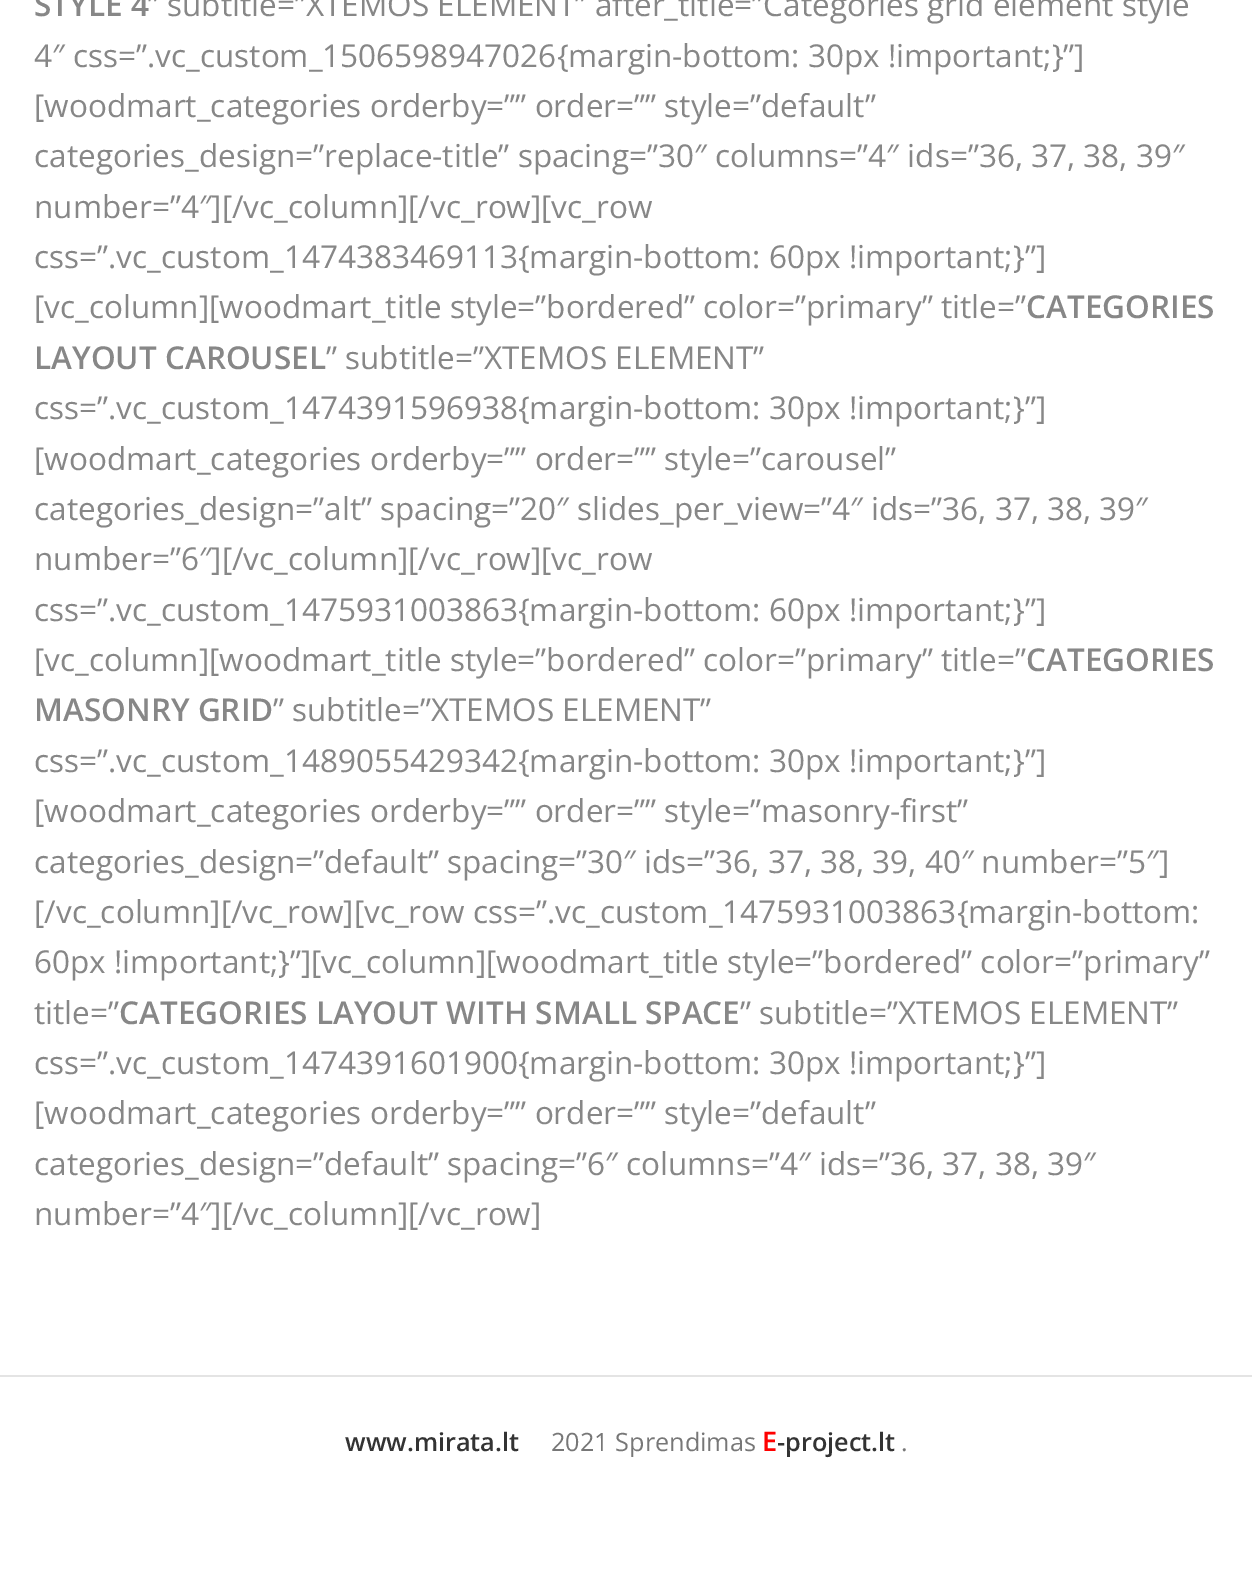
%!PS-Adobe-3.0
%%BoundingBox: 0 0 1252 1576
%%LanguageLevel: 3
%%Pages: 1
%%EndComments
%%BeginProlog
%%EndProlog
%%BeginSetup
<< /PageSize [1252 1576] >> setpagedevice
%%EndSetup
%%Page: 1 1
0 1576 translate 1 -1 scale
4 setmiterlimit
1 setgray
0 0 1252 1576 rectfill
0.894 setgray
0 1375 1252 2 rectfill
/OpenSans-SemiBold [31.5 0 0 -31.5 0 0] selectfont
0.529 setgray
34 16 moveto (STYLE 4) show
/OpenSans-Regular [31.5 0 0 -31.5 0 0] selectfont
148 16 moveto (” subtitle=”XTEMOS ELEMENT” after_title=”Categories grid element style) show
34 67 moveto (4″ css=”.vc_custom_1506598947026{margin-bottom: 30px !important;}”]) show
34 117 moveto ([woodmart_categories orderby=”” order=”” style=”default”) show
34 167 moveto (categories_design=”replace-title” spacing=”30″ columns=”4″ ids=”36, 37, 38, 39″) show
34 218 moveto (number=”4″][/vc_column][/vc_row][vc_row) show
34 268 moveto (css=”.vc_custom_1474383469113{margin-bottom: 60px !important;}”]) show
34 318 moveto ([vc_column][woodmart_title style=”bordered” color=”primary” title=”) show
/OpenSans-SemiBold [31.5 0 0 -31.5 0 0] selectfont
1026 318 moveto (CATEGORIES) show
34 369 moveto (LAYOUT CAROUSEL) show
/OpenSans-Regular [31.5 0 0 -31.5 0 0] selectfont
326 369 moveto (” subtitle=”XTEMOS ELEMENT”) show
34 419 moveto (css=”.vc_custom_1474391596938{margin-bottom: 30px !important;}”]) show
34 470 moveto ([woodmart_categories orderby=”” order=”” style=”carousel”) show
34 520 moveto (categories_design=”alt” spacing=”20″ slides_per_view=”4″ ids=”36, 37, 38, 39″) show
34 570 moveto (number=”6″][/vc_column][/vc_row][vc_row) show
34 621 moveto (css=”.vc_custom_1475931003863{margin-bottom: 60px !important;}”]) show
34 671 moveto ([vc_column][woodmart_title style=”bordered” color=”primary” title=”) show
/OpenSans-SemiBold [31.5 0 0 -31.5 0 0] selectfont
1026 671 moveto (CATEGORIES) show
34 721 moveto (MASONRY GRID) show
/OpenSans-Regular [31.5 0 0 -31.5 0 0] selectfont
273 721 moveto (” subtitle=”XTEMOS ELEMENT”) show
34 772 moveto (css=”.vc_custom_1489055429342{margin-bottom: 30px !important;}”]) show
34 822 moveto ([woodmart_categories orderby=”” order=”” style=”masonry-first”) show
34 873 moveto (categories_design=”default” spacing=”30″ ids=”36, 37, 38, 39, 40″ number=”5″]) show
34 923 moveto ([/vc_column][/vc_row][vc_row css=”.vc_custom_1475931003863{margin-bottom:) show
34 973 moveto (60px !important;}”][vc_column][woodmart_title style=”bordered” color=”primary”) show
34 1024 moveto (title=”) show
/OpenSans-SemiBold [31.5 0 0 -31.5 0 0] selectfont
119 1024 moveto (CATEGORIES LAYOUT WITH SMALL SPACE) show
/OpenSans-Regular [31.5 0 0 -31.5 0 0] selectfont
740 1024 moveto (” subtitle=”XTEMOS ELEMENT”) show
34 1074 moveto (css=”.vc_custom_1474391601900{margin-bottom: 30px !important;}”]) show
34 1124 moveto ([woodmart_categories orderby=”” order=”” style=”default”) show
34 1175 moveto (categories_design=”default” spacing=”6″ columns=”4″ ids=”36, 37, 38, 39″) show
34 1225 moveto (number=”4″][/vc_column][/vc_row]) show
/OpenSans-SemiBold [25.25 0 0 -25.25 0 0] selectfont
0.2 setgray
345 1451 moveto (www.mirata.lt) show
/OpenSans-Regular [25.25 0 0 -25.25 0 0] selectfont
0.467 setgray
551 1451 moveto (2021 Sprendimas) show
/OpenSans-SemiBold [27 0 0 -27 0 0] selectfont
1 0 0 setrgbcolor
762 1451 moveto (E) show
/OpenSans-SemiBold [25.25 0 0 -25.25 0 0] selectfont
0.2 setgray
777 1451 moveto (-project.lt) show
/OpenSans-Regular [25.25 0 0 -25.25 0 0] selectfont
0.467 setgray
901 1451 moveto (.) show
showpage
%%EOF
